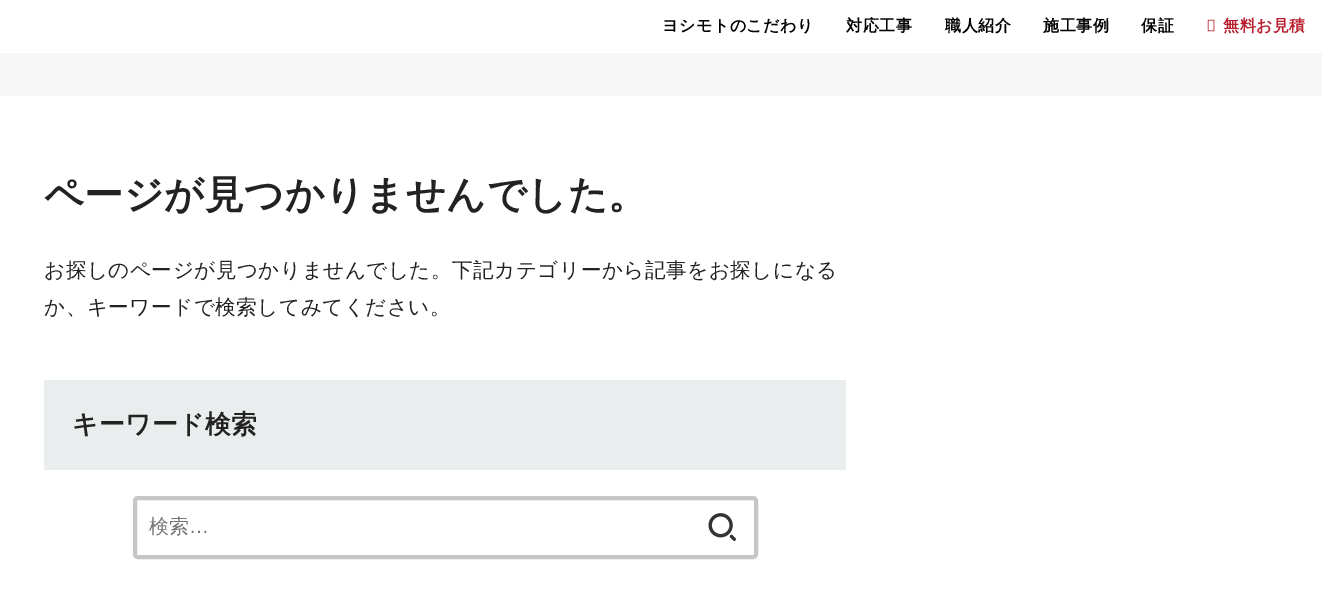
%!PS-Adobe-3.0
%%BoundingBox: 0 0 1322 610
%%LanguageLevel: 3
%%Pages: 1
%%EndComments
%%BeginProlog
/rrect { 5 dict begin { /r /h /w /y /x } { exch def } forall
  x r add y moveto x w add y 2 copy h add r arct x w add y h add x 1 index r arct
  x y h add x y r arct x y 2 copy exch w add exch r arct closepath end } def
/drawimage { 5 dict begin { /h /w /y /x /name } { exch def } forall
  gsave x y translate w h scale
  w h 8 [w 0 0 h 0 0] name (r) file false 3 colorimage grestore end } def
%%EndProlog
%%BeginSetup
<< /PageSize [1322 610] >> setpagedevice
%%EndSetup
%%Page: 1 1
0 610 translate 1 -1 scale
4 setmiterlimit
0.969 setgray
0 0 1322 610 rectfill
1 setgray
0 0 1322 53 rectfill
(images/1.raw) 1207 19 8 13 drawimage
0 96 1322 514 rectfill
0.918 0.929 0.933 setrgbcolor
44 380 802 90 rectfill
0.776 setgray
4 setlinewidth
135 498 621 59 3 rrect stroke
(images/2.raw) 708 513 28 28 drawimage
/WenQuanYiZenHei-Bold [16 0 0 -16 0 0] selectfont
0 setgray
662 31 moveto 0.5 0 (ヨシモトのこだわり) ashow
846 31 moveto 0.5 0 (対応工事) ashow
945 31 moveto 0.5 0 (職人紹介) ashow
1043 31 moveto 0.5 0 (施工事例) ashow
1141 31 moveto 0.5 0 (保証) ashow
0.722 0.114 0.176 setrgbcolor
1223 31 moveto 0.5 0 (無料お見積) ashow
/WenQuanYiZenHei-Bold [39.1 0 0 -39.1 0 0] selectfont
0.133 setgray
44 208 moveto 0.4 0 (ページが見つかりませんでした。) ashow
/WenQuanYiZenHei-Medium [20.6 0 0 -20.6 0 0] selectfont
44 277 moveto 0.5 0 (お探しのページが見つかりませんでした。下記カテゴリーから記事をお探しになる) ashow
44 314 moveto 0.5 0 (か、キーワードで検索してみてください。) ashow
/WenQuanYiZenHei-Bold [25.75 0 0 -25.75 0 0] selectfont
72 433 moveto 0.4 0 (キーワード検索) ashow
/WenQuanYiZenHei-Medium [20 0 0 -20 0 0] selectfont
0.459 setgray
149 533 moveto (検索) show
/LiberationSans-Regular [20 0 0 -20 0 0] selectfont
189 533 moveto (…) show
showpage
%%EOF
